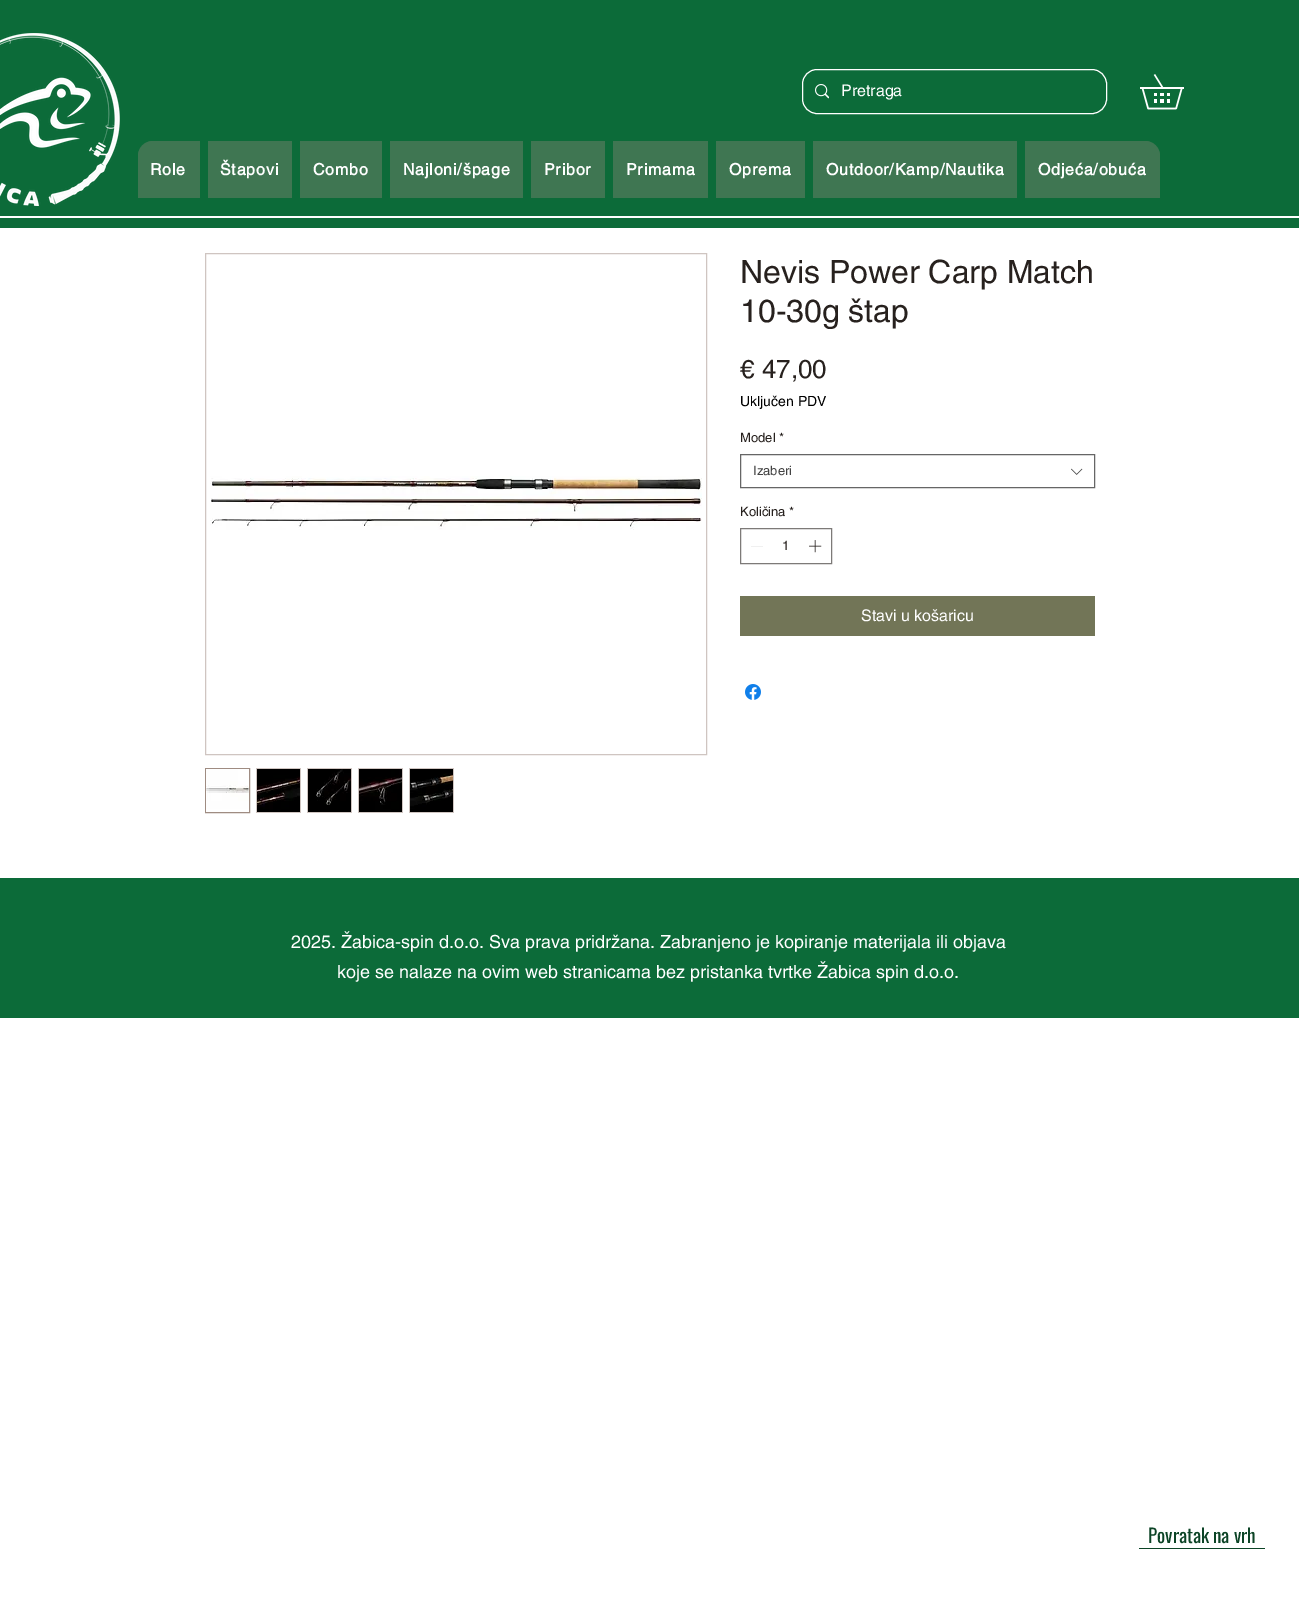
%!PS-Adobe-3.0
%%BoundingBox: 0 0 1299 1599
%%LanguageLevel: 3
%%Pages: 1
%%EndComments
%%BeginProlog
/rrect { 5 dict begin { /r /h /w /y /x } { exch def } forall
  x r add y moveto x w add y 2 copy h add r arct x w add y h add x 1 index r arct
  x y h add x y r arct x y 2 copy exch w add exch r arct closepath end } def
/drawimage { 5 dict begin { /h /w /y /x /name } { exch def } forall
  gsave x y translate w h scale
  w h 8 [w 0 0 h 0 0] name (r) file false 3 colorimage grestore end } def
%%EndProlog
%%BeginSetup
<< /PageSize [1299 1599] >> setpagedevice
%%EndSetup
%%Page: 1 1
0 1599 translate 1 -1 scale
4 setmiterlimit
1 setgray
0 0 1299 1599 rectfill
0.047 0.42 0.224 setrgbcolor
0 0 1299 228 rectfill
(images/1.raw) 0 33 120 173 drawimage
1 setgray
802.5 69.5 304 44 14.5 rrect stroke
(images/2.raw) 815 84 14 15 drawimage
(images/3.raw) 1140 74 44 36 drawimage
0.247 0.463 0.322 setrgbcolor
newpath 153 141 moveto 200 141 lineto 200 198 lineto 138 198 lineto 138 156 lineto 138 147.5 144.5 141 153 141 curveto closepath fill
newpath 153 141 moveto 148 142 lineto 199 142 lineto 199 197 lineto 139 197 lineto 139 151 lineto 138 156 lineto 138 198 lineto 200 198 lineto 200 141 lineto closepath fill
208 141 84 57 rectfill
300 141 82 57 rectfill
390 141 133 57 rectfill
531 141 74 57 rectfill
613 141 95 57 rectfill
716 141 89 57 rectfill
813 141 204 57 rectfill
newpath 1025 141 moveto 1145 141 lineto 1153.5 141 1160 147.5 1160 156 curveto 1160 198 lineto 1025 198 lineto closepath fill
newpath 1025 141 moveto 1025 198 lineto 1160 198 lineto 1160 156 lineto 1159 151 lineto 1159 197 lineto 1026 197 lineto 1026 142 lineto 1150 142 lineto 1145 141 lineto closepath fill
1 setgray
0 216 1299 2 rectfill
0.812 0.773 0.757 setrgbcolor
205.5 253.5 501 501 rectstroke
(images/4.raw) 210 476 492 54 drawimage
0.624 0.549 0.51 setrgbcolor
205.5 768.5 44 44 rectstroke
(images/5.raw) 206 769 43 43 drawimage
0.812 0.773 0.757 setrgbcolor
256 768 45 45 rectfill
(images/6.raw) 257 769 43 43 drawimage
307 768 45 45 rectfill
(images/7.raw) 308 769 43 43 drawimage
358 768 45 45 rectfill
(images/8.raw) 359 769 43 43 drawimage
409 768 45 45 rectfill
(images/9.raw) 410 769 43 43 drawimage
0.4 setgray
740.5 454.5 354 33 rectstroke
(images/10.raw) 1071 468 12 7 drawimage
0.49 0.478 0.471 setrgbcolor
740.5 528.5 91 35 rectstroke
0.89 setgray
newpath 763 546 moveto 763 546.5 lineto 751 546.5 lineto 751 546 lineto closepath eofill
(images/11.raw) 809 540 13 13 drawimage
0.447 0.459 0.341 setrgbcolor
740 596 355 40 rectfill
(images/12.raw) 745 684 16 16 drawimage
0.047 0.42 0.224 setrgbcolor
0 878 1299 140 rectfill
0.047 0.267 0.149 setrgbcolor
1139 1548 126 1 rectfill
/helvetica-Regular [16 0 0 -16 0 0] selectfont
1 setgray
841 96 moveto (Pretraga) show
/helvetica-Bold [16 0 0 -16 0 0] selectfont
150 175 moveto 0.8 0 (Role) ashow
220 175 moveto 0.8 0 (Štapovi) ashow
313 175 moveto 0.8 0 (Combo) ashow
403 175 moveto 0.8 0 (Najloni/špage) ashow
544 175 moveto 0.8 0 (Pribor) ashow
626 175 moveto 0.8 0 (Primama) ashow
729 175 moveto 0.8 0 (Oprema) ashow
826 175 moveto 0.8 0 (Outdoor/Kamp/Nautika) ashow
1038 175 moveto 0.8 0 (Odjeća/obuća) ashow
/helvetica-Regular [32 0 0 -32 0 0] selectfont
0.153 0.129 0.118 setrgbcolor
740 283 moveto (Nevis Power Carp Match) show
740 322 moveto (10-30g štap) show
/helvetica-Regular [26 0 0 -26 0 0] selectfont
740 378 moveto (€ 47,00) show
/helvetica-Regular [14 0 0 -14 0 0] selectfont
0 setgray
740 406 moveto (Uključen PDV) show
/helvetica-Regular [13 0 0 -13 0 0] selectfont
0.153 0.129 0.118 setrgbcolor
740 442 moveto (Model) show
779 442 moveto (*) show
0.267 setgray
753 475 moveto (Izaberi) show
0.153 0.129 0.118 setrgbcolor
740 516 moveto (Količina) show
789 516 moveto (*) show
782 550 moveto (1) show
/helvetica-Regular [16 0 0 -16 0 0] selectfont
1 setgray
861 621 moveto (Stavi u košaricu) show
/helvetica-Regular [18 0 0 -18 0 0] selectfont
291 948 moveto (2025. Žabica-spin d.o.o. Sva prava pridržana. Zabranjeno je kopiranje materijala ili objava) show
337 978 moveto (koje se nalaze na ovim web stranicama bez pristanka tvrtke Žabica spin d.o.o.) show
/Oswald-Regular [19 0 0 -19 0 0] selectfont
0.047 0.267 0.149 setrgbcolor
1148 1543 moveto (Povratak na vrh) show
showpage
%%EOF
